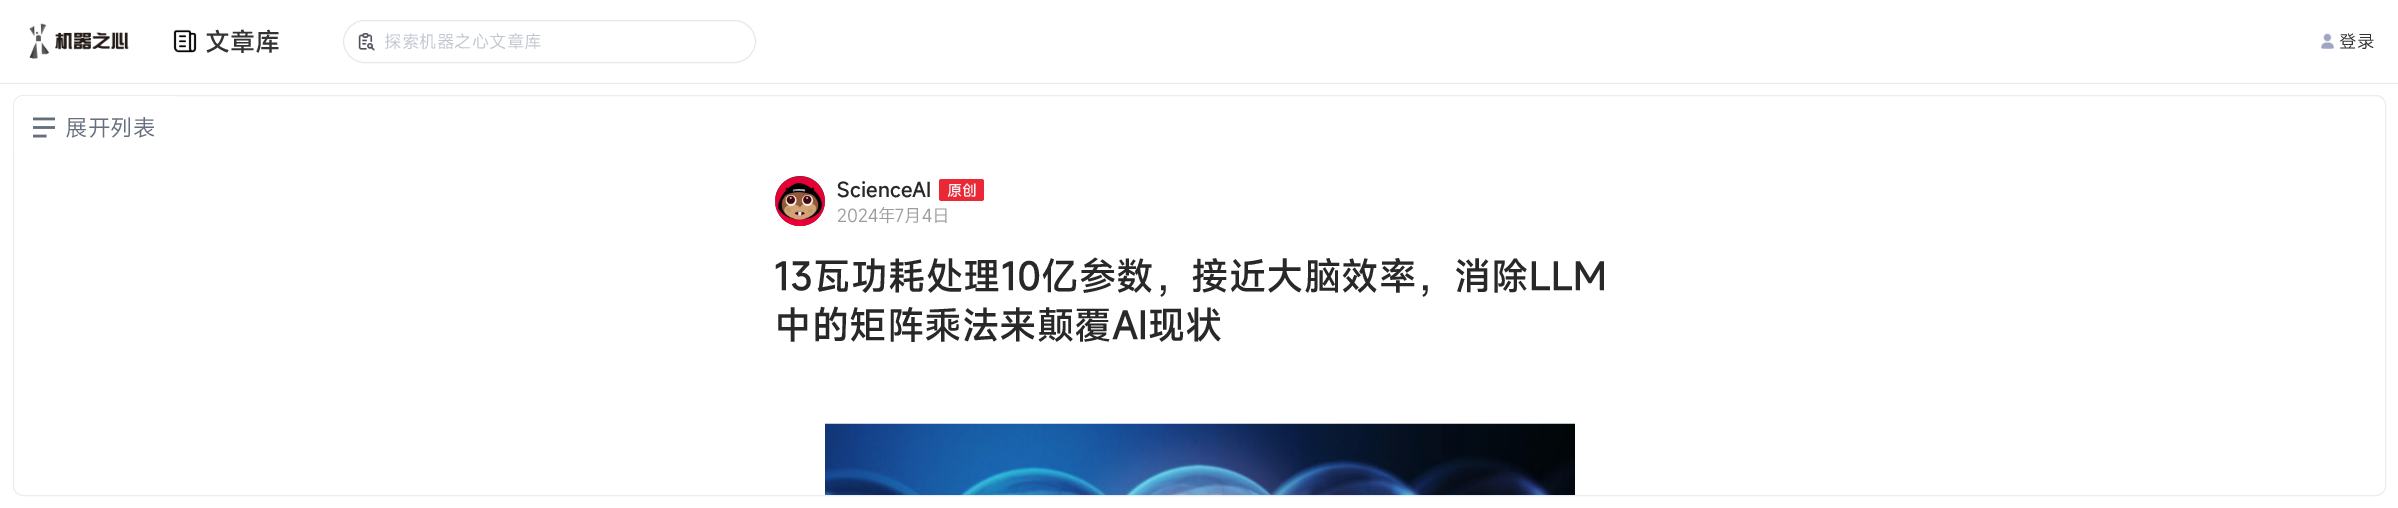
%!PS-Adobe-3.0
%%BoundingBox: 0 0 2398 508
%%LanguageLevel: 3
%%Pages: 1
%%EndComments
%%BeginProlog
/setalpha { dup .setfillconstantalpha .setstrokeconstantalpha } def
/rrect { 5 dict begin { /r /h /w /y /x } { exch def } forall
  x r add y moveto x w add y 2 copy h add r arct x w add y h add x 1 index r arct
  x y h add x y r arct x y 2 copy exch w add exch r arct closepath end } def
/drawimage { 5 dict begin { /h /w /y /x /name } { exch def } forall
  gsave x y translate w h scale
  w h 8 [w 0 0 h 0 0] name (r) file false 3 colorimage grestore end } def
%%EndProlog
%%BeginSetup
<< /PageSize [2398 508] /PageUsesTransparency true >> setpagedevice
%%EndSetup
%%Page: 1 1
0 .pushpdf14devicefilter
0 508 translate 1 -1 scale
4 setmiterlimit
1 setgray
0 0 2398 508 rectfill
0.922 0.925 0.945 setrgbcolor
newpath 0 82 moveto 0 84 lineto 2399 84 lineto 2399 1 lineto 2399 82 lineto closepath fill
0.8 setalpha
1 setgray
0 82 2398 1 rectfill
1 setalpha
(images/1.raw) 29 23 100 36 drawimage
(images/2.raw) 173 29 24 24 drawimage
0.906 0.91 0.929 setrgbcolor
343.5 20.5 412 42 21 rrect stroke
(images/3.raw) 358 33 17 18 drawimage
(images/4.raw) 2321 33 13 16 drawimage
0.922 0.925 0.945 setrgbcolor
13.5 95.5 2372 400 9.5 rrect stroke
1 setgray
newpath 24 96 moveto 176 96 lineto 176 163 lineto 24 163 lineto 18.5 163 14 158.5 14 153 curveto 14 106 lineto 14 100.5 18.5 96 24 96 curveto closepath fill
(images/5.raw) 33 117 22 21 drawimage
0.2 setgray
newpath 800 201 25 0 360 arc closepath fill
(images/6.raw) 775 176 50 51 drawimage
0.922 0.157 0.208 setrgbcolor
939 179 45 22 2.5 rrect fill
(images/7.raw) 825 423 750 72 drawimage
/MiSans-Medium [25 0 0 -25 0 0] selectfont
0.2 setgray
205 51 moveto (文章库) show
/MiSans-Regular [17.5 0 0 -17.5 0 0] selectfont
0.757 0.78 0.816 setrgbcolor
384 48 moveto (探索机器之心文章库) show
0.2 setgray
2339 48 moveto (登录) show
/MiSans-Regular [22.5 0 0 -22.5 0 0] selectfont
0.4 0.435 0.49 setrgbcolor
65 136 moveto (展开列表) show
/MiSans-Medium [20 0 0 -20 0 0] selectfont
0.157 setgray
837 197 moveto (ScienceAI) show
/MiSans-Medium [15 0 0 -15 0 0] selectfont
0.965 setgray
947 196 moveto (原创) show
/MiSans-Regular [17.5 0 0 -17.5 0 0] selectfont
0.616 setgray
837 222 moveto (2024年7月4日) show
/MiSans-Medium [37.5 0 0 -37.5 0 0] selectfont
0.157 setgray
774 290 moveto (13瓦功耗处理10亿参数，接近大脑效率，消除LLM) show
774 339 moveto (中的矩阵乘法来颠覆AI现状) show
.poppdf14devicefilter showpage
%%EOF
